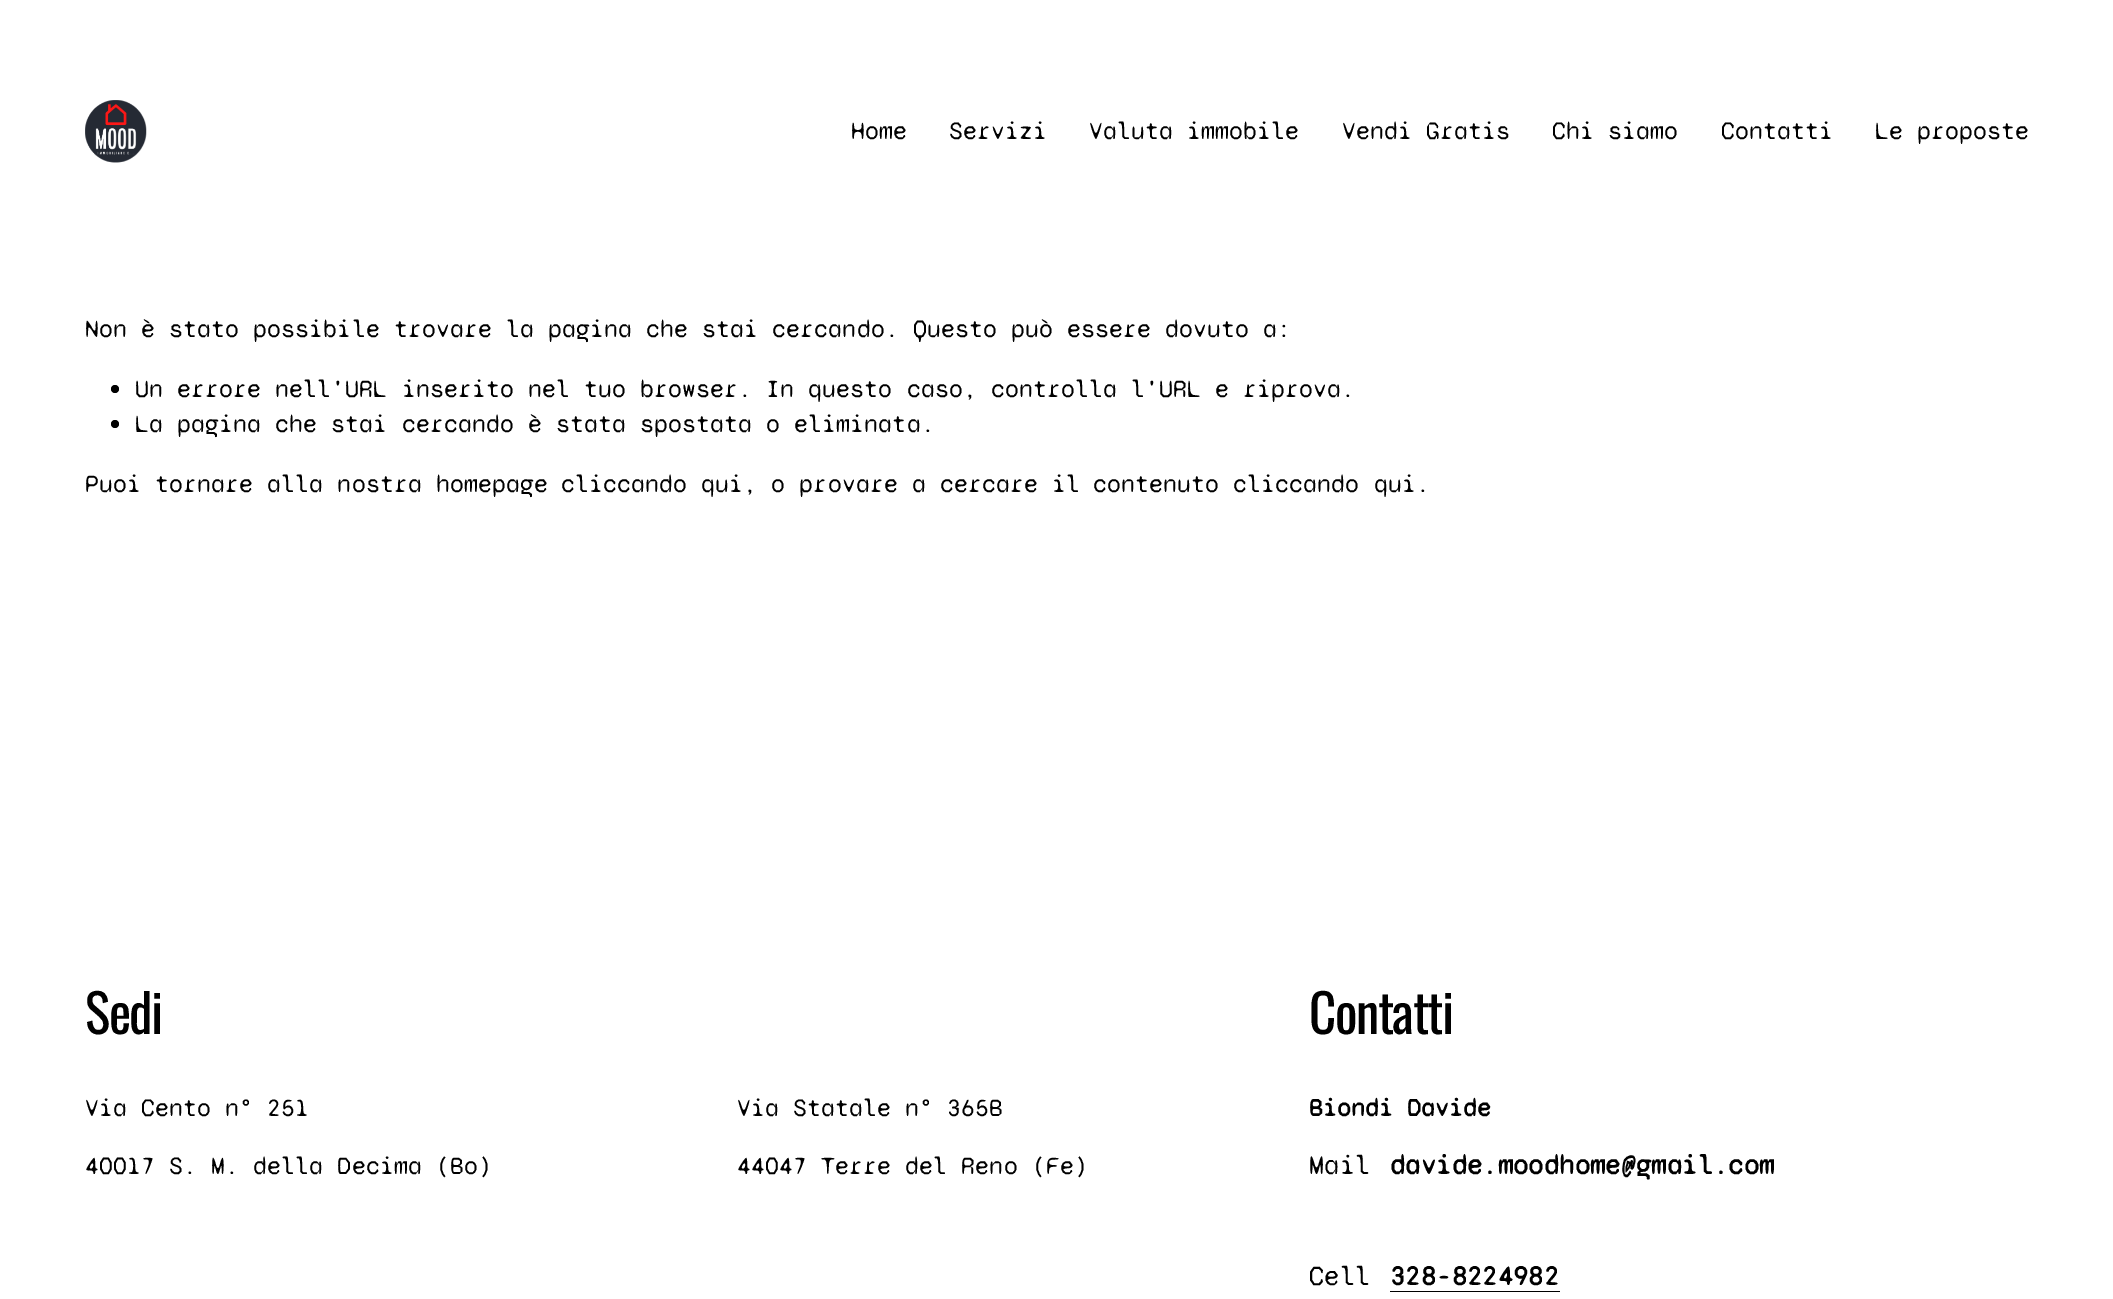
%!PS-Adobe-3.0
%%BoundingBox: 0 0 2113 1299
%%LanguageLevel: 3
%%Pages: 1
%%EndComments
%%BeginProlog
/drawimage { 5 dict begin { /h /w /y /x /name } { exch def } forall
  gsave x y translate w h scale
  w h 8 [w 0 0 h 0 0] name (r) file false 3 colorimage grestore end } def
%%EndProlog
%%BeginSetup
<< /PageSize [2113 1299] >> setpagedevice
%%EndSetup
%%Page: 1 1
0 1299 translate 1 -1 scale
4 setmiterlimit
1 setgray
0 0 2113 1299 rectfill
(images/1.raw) 85 100 62 63 drawimage
0 setgray
newpath 115 389 4 0 360 arc closepath fill
newpath 115 424 4 0 360 arc closepath fill
1390 1291 170 1 rectfill
/SyneMono-Regular [25.05 0 0 -25.05 0 0] selectfont
851 139 moveto 0.25 0 (Home) ashow
949 139 moveto 0.25 0 (Servizi) ashow
1089 139 moveto 0.25 0 (Valuta immobile) ashow
1342 139 moveto 0.25 0 (Vendi Gratis) ashow
1552 139 moveto 0.25 0 (Chi siamo) ashow
1721 139 moveto 0.25 0 (Contatti) ashow
1875 139 moveto 0.25 0 (Le proposte) ashow
85 337 moveto 0.25 0 (Non è stato possibile trovare la pagina che stai cercando. Questo può essere dovuto a:) ashow
135 397 moveto 0.25 0 (Un errore nell'URL inserito nel tuo browser. In questo caso, controlla l'URL e riprova.) ashow
135 432 moveto 0.25 0 (La pagina che stai cercando è stata spostata o eliminata.) ashow
85 492 moveto 0.25 0 (Puoi tornare alla nostra homepage) ashow
561 492 moveto 0.25 0 (cliccando qui, o provare a cercare il) ashow
1093 492 moveto 0.25 0 (contenuto cliccando qui.) ashow
/Oswald-Regular [53 0 0 -53 0 0] selectfont
85 1034 moveto -1.5 0 (Sedi) ashow
1309 1034 moveto -1.5 0 (Contatti) ashow
/SyneMono-Regular [25.05 0 0 -25.05 0 0] selectfont
85 1116 moveto 0.25 0 (Via Cento n° 251) ashow
85 1174 moveto 0.25 0 (40017 S. M. della Decima \(Bo\)) ashow
737 1116 moveto 0.25 0 (Via Statale n° 365B) ashow
737 1174 moveto 0.25 0 (44047 Terre del Reno \(Fe\)) ashow
/SyneMono-Bold [25.05 0 0 -25.05 0 0] selectfont
1309 1116 moveto 0.25 0 (Biondi Davide) ashow
/SyneMono-Regular [27.5 0 0 -27.5 0 0] selectfont
1309 1174 moveto 0.25 0 (Mail) ashow
/SyneMono-Bold [27.5 0 0 -27.5 0 0] selectfont
1390 1174 moveto 0.25 0 (davide.moodhome@gmail.com) ashow
/SyneMono-Regular [27.5 0 0 -27.5 0 0] selectfont
1309 1285 moveto 0.25 0 (Cell) ashow
/SyneMono-Bold [27.5 0 0 -27.5 0 0] selectfont
1390 1285 moveto 0.25 0 (328-8224982) ashow
showpage
%%EOF
